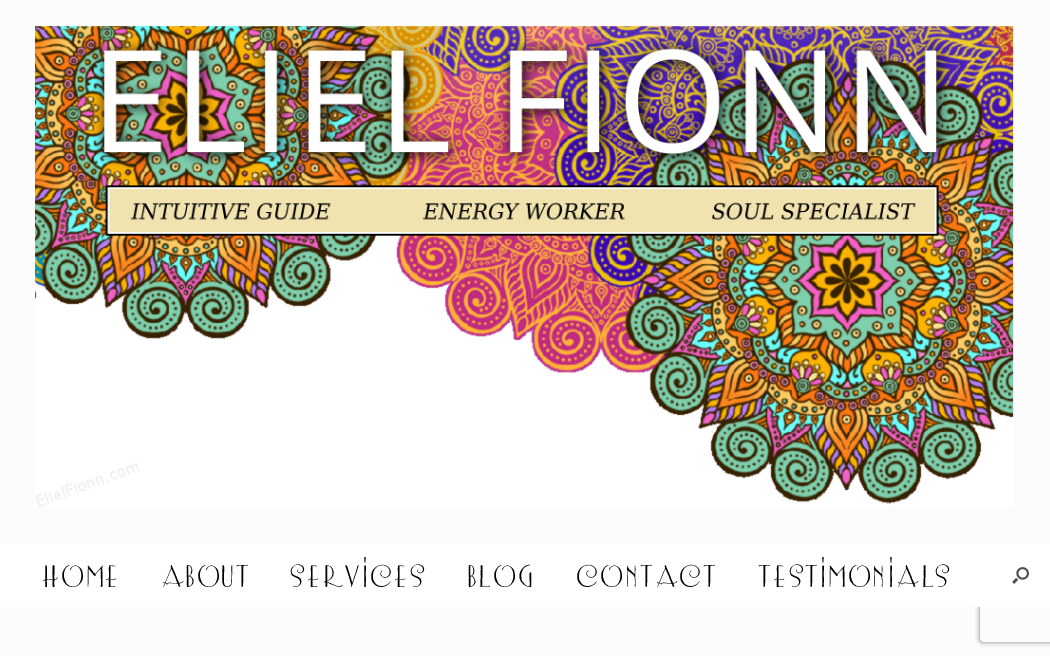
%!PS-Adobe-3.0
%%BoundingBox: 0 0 1050 656
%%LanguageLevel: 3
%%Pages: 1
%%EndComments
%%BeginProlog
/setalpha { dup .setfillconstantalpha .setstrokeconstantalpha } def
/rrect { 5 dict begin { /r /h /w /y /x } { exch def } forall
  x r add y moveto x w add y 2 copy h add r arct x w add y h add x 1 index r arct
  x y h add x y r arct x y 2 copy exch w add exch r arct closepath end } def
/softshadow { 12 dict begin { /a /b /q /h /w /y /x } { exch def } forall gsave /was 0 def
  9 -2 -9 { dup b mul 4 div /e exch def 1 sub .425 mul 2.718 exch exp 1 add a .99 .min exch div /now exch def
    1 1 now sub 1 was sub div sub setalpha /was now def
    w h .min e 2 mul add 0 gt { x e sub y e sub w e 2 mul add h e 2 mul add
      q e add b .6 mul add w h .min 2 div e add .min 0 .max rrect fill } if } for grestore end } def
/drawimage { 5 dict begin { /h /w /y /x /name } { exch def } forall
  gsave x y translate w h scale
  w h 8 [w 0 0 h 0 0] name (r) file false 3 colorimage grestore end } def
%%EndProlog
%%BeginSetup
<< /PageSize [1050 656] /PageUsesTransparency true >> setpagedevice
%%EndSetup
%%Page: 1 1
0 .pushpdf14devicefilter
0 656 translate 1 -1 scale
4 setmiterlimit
0.988 setgray
0 0 1050 656 rectfill
(images/1.raw) 35 26 979 481 drawimage
gsave
newpath 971 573 moveto 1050 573 lineto 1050 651 lineto 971 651 lineto closepath 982 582 moveto 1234 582 lineto 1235 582 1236 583 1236 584 curveto 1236 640 lineto 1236 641 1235 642 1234 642 curveto 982 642 lineto 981 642 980 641 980 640 curveto 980 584 lineto 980 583 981 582 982 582 curveto closepath eoclip newpath
0.502 setgray
980 582 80 60 2 2.5 1 softshadow
grestore
1 setgray
0 543 1050 64 rectfill
(images/2.raw) 1012 567 17 17 drawimage
/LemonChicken-Regular [28 0 0 -28 0 0] selectfont
0 setgray
41 587 moveto (Home) show
160 587 moveto (About) show
289 587 moveto (Services) show
466 587 moveto (Blog) show
575 587 moveto (Contact) show
757 587 moveto (Testimonials) show
.poppdf14devicefilter showpage
%%EOF
